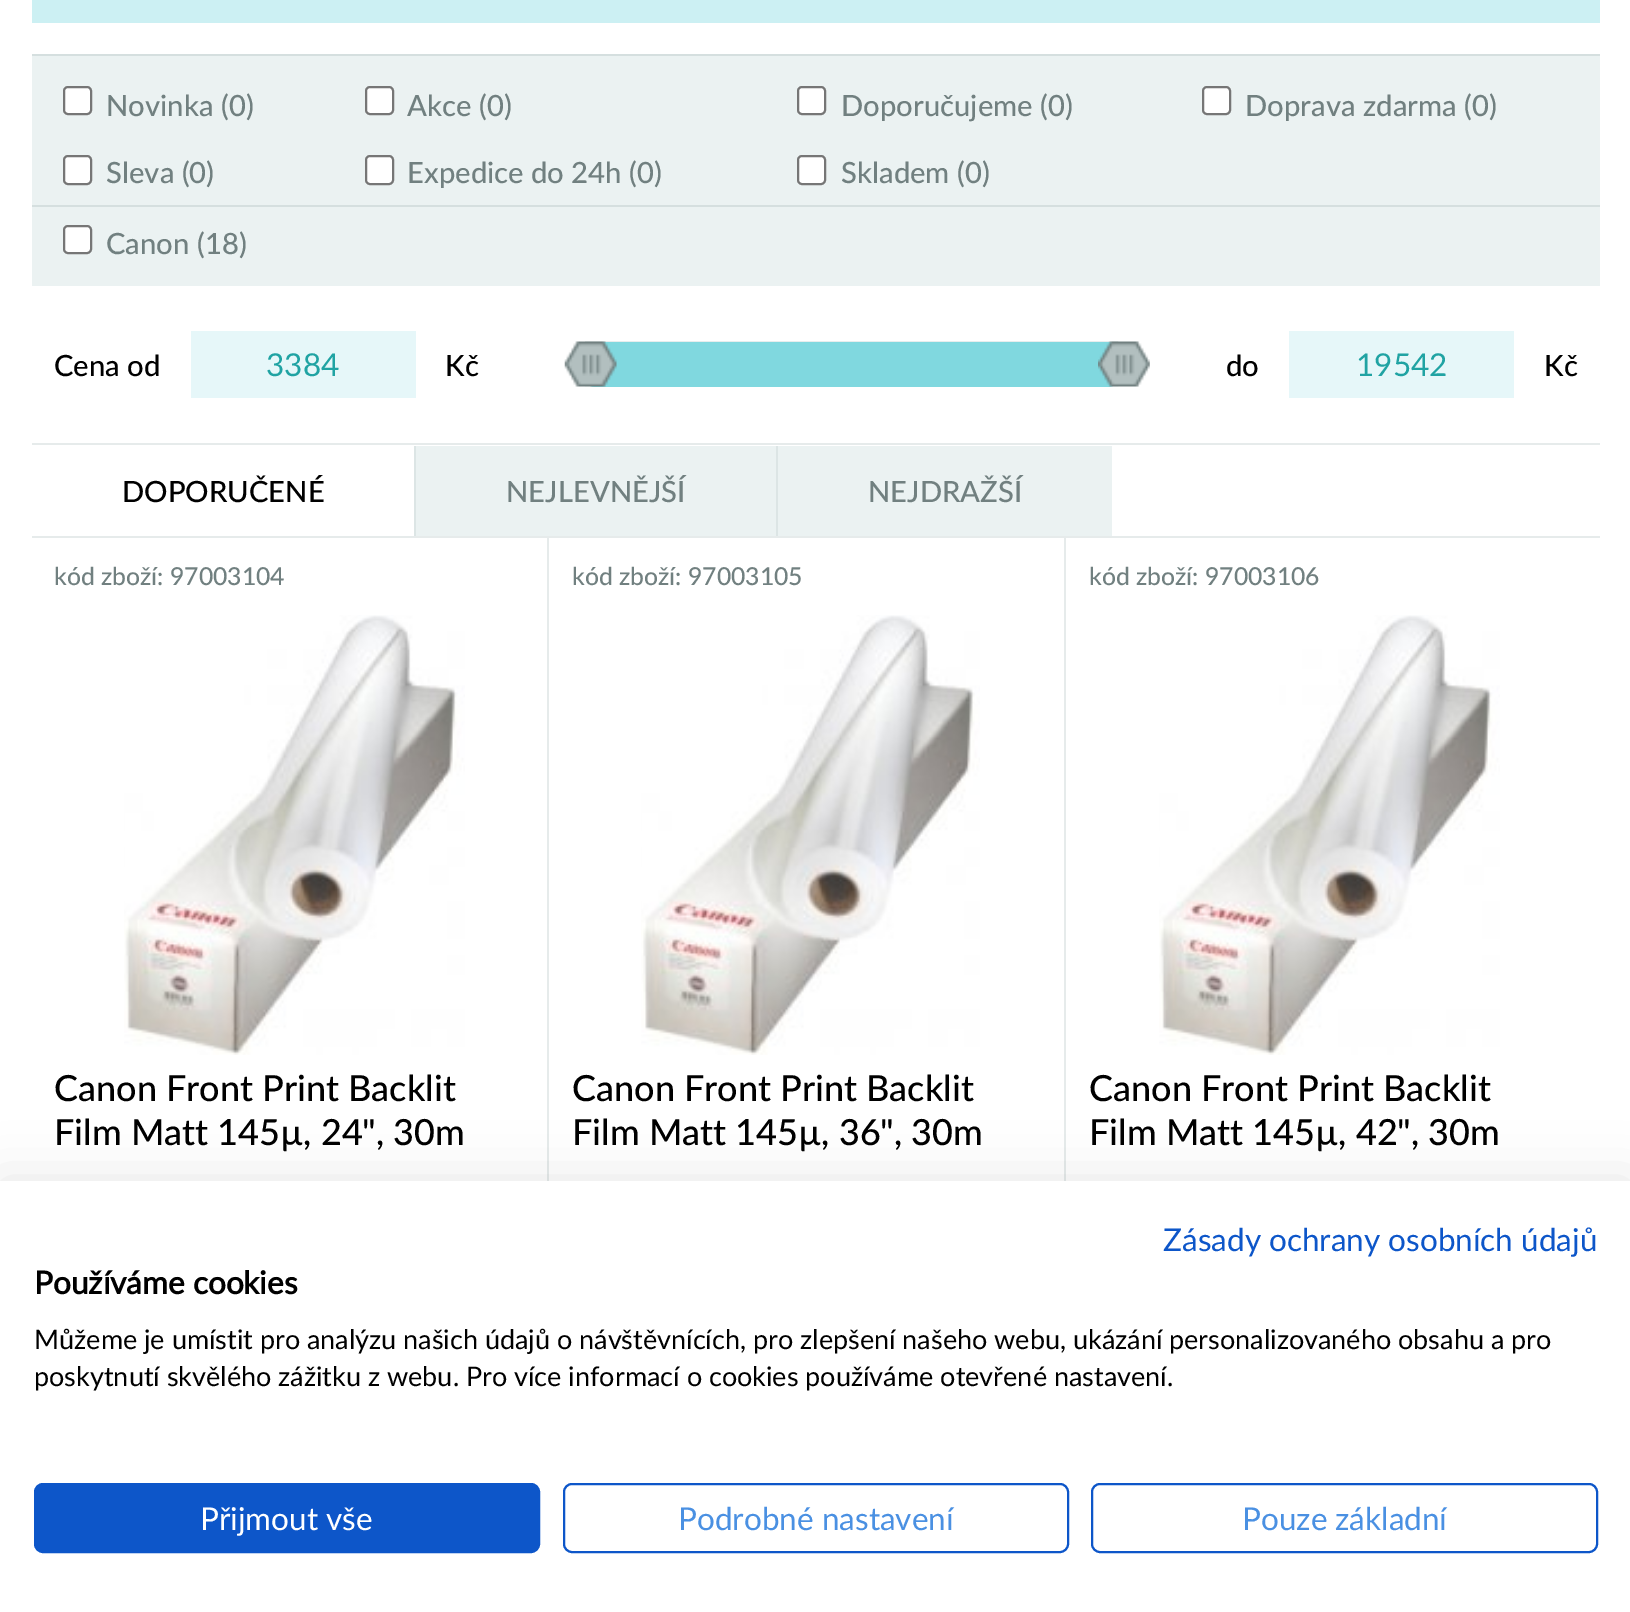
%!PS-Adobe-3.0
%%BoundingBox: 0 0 1630 1612
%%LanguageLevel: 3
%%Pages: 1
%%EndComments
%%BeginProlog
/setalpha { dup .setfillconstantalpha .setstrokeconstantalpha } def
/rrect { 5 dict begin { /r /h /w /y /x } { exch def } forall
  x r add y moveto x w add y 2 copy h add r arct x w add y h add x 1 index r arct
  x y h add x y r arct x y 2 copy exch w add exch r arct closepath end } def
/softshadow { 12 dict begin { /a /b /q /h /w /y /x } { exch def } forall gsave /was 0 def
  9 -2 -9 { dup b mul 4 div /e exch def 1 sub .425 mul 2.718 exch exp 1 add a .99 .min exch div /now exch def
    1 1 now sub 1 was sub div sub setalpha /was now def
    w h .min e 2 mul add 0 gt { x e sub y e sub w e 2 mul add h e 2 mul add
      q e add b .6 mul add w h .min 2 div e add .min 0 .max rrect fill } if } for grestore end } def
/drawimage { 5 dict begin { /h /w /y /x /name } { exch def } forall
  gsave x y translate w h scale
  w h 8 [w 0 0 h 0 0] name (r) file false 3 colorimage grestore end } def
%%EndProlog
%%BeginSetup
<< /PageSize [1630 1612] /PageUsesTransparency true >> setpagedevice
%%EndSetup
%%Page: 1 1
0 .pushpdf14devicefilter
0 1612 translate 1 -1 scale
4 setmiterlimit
1 setgray
0 0 1630 1612 rectfill
0.8 0.941 0.953 setrgbcolor
32 0 1568 23 rectfill
0.922 0.949 0.949 setrgbcolor
32 56 1568 230 rectfill
0.835 0.875 0.875 setrgbcolor
32 54 1568 2 rectfill
1 setgray
64 87 27 27 4 rrect gsave fill grestore
0.463 setgray
2 setlinewidth
stroke
1 setgray
366 87 27 27 4 rrect gsave fill grestore
0.463 setgray
stroke
1 setgray
798 87 27 27 4 rrect gsave fill grestore
0.463 setgray
stroke
1 setgray
1203 87 27 27 4 rrect gsave fill grestore
0.463 setgray
stroke
0.835 0.875 0.875 setrgbcolor
32 205 1568 2 rectfill
1 setgray
64 156 27 28 4 rrect gsave fill grestore
0.463 setgray
stroke
1 setgray
366 156 27 28 4 rrect gsave fill grestore
0.463 setgray
stroke
1 setgray
798 156 27 28 4 rrect gsave fill grestore
0.463 setgray
stroke
1 setgray
64 226 27 27 4 rrect gsave fill grestore
0.463 setgray
stroke
0.902 0.969 0.976 setrgbcolor
191 331 225 67 rectfill
(images/1.raw) 585 341 534 46 drawimage
0.502 0.847 0.875 setrgbcolor
585 342 533 45 9 rrect fill
(images/2.raw) 564 341 53 46 drawimage
(images/3.raw) 1098 341 52 46 drawimage
0.902 0.969 0.976 setrgbcolor
1289 331 225 67 rectfill
0.902 0.922 0.922 setrgbcolor
32 443 1568 2 rectfill
32 536 1568 2 rectfill
0.922 0.949 0.949 setrgbcolor
416 446 696 90 rectfill
0.863 0.898 0.898 setrgbcolor
776 446 2 90 rectfill
414 446 2 90 rectfill
0.902 0.922 0.922 setrgbcolor
547 538 2 643 rectfill
(images/4.raw) 124 615 341 440 drawimage
1064 538 2 643 rectfill
(images/5.raw) 641 615 339 440 drawimage
(images/6.raw) 1159 615 341 440 drawimage
0 setgray
0 1181 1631 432 0 27 0.1 softshadow
1 setgray
0 1181 1630 431 rectfill
0.051 0.337 0.788 setrgbcolor
35 1484 504 68 8 rrect gsave fill grestore
stroke
564 1484 504 68 8 rrect stroke
1092 1484 505 68 8 rrect stroke
/Lato-Medium [29.25 0 0 -29.25 0 0] selectfont
0.443 0.502 0.502 setrgbcolor
106 116 moveto (Novinka \(0\)) show
407 116 moveto (Akce \(0\)) show
841 116 moveto (Doporučujeme \(0\)) show
1245 116 moveto (Doprava zdarma \(0\)) show
106 183 moveto (Sleva \(0\)) show
407 183 moveto (Expedice do 24h \(0\)) show
841 183 moveto (Skladem \(0\)) show
106 254 moveto (Canon \(18\)) show
0 setgray
54 376 moveto (Cena od) show
/Lato-Regular [31.5 0 0 -31.5 0 0] selectfont
0.125 0.639 0.639 setrgbcolor
266 376 moveto (3384) show
/Lato-Medium [29.25 0 0 -29.25 0 0] selectfont
0 setgray
445 376 moveto (Kč) show
1226 376 moveto (do) show
/Lato-Regular [31.5 0 0 -31.5 0 0] selectfont
0.125 0.639 0.639 setrgbcolor
1356 376 moveto (19542) show
/Lato-Medium [29.25 0 0 -29.25 0 0] selectfont
0 setgray
1544 376 moveto (Kč) show
122 502 moveto (DOPORUČENÉ) show
0.443 0.502 0.502 setrgbcolor
506 502 moveto (NEJLEVNĚJŠÍ) show
868 502 moveto (NEJDRAŽŠÍ) show
/Lato-Medium [24.75 0 0 -24.75 0 0] selectfont
54 585 moveto (kód zboží: 97003104) show
/Lato-Medium [36 0 0 -36 0 0] selectfont
0 setgray
54 1101 moveto (Canon Front Print Backlit) show
54 1145 moveto (Film Matt 145µ, 24", 30m) show
/Lato-Medium [24.75 0 0 -24.75 0 0] selectfont
0.443 0.502 0.502 setrgbcolor
572 585 moveto (kód zboží: 97003105) show
/Lato-Medium [36 0 0 -36 0 0] selectfont
0 setgray
572 1101 moveto (Canon Front Print Backlit) show
572 1145 moveto (Film Matt 145µ, 36", 30m) show
/Lato-Medium [24.75 0 0 -24.75 0 0] selectfont
0.443 0.502 0.502 setrgbcolor
1089 585 moveto (kód zboží: 97003106) show
/Lato-Medium [36 0 0 -36 0 0] selectfont
0 setgray
1089 1101 moveto (Canon Front Print Backlit) show
1089 1145 moveto (Film Matt 145µ, 42", 30m) show
/Lato-Regular [31.5 0 0 -31.5 0 0] selectfont
0.051 0.337 0.788 setrgbcolor
1163 1251 moveto (Zásady ochrany osobních údajů) show
/Lato-Bold [31.5 0 0 -31.5 0 0] selectfont
0 setgray
34 1294 moveto (Používáme cookies) show
/Lato-Regular [27 0 0 -27 0 0] selectfont
34 1349 moveto (Můžeme je umístit pro analýzu našich údajů o návštěvnících, pro zlepšení našeho webu, ukázání personalizovaného obsahu a pro) show
34 1386 moveto (poskytnutí skvělého zážitku z webu. Pro více informací o cookies používáme otevřené nastavení.) show
/Lato-Regular [31.5 0 0 -31.5 0 0] selectfont
1 setgray
200 1530 moveto (Přijmout vše) show
0.29 0.565 0.886 setrgbcolor
678 1530 moveto (Podrobné nastavení) show
1242 1530 moveto (Pouze základní) show
.poppdf14devicefilter showpage
%%EOF
